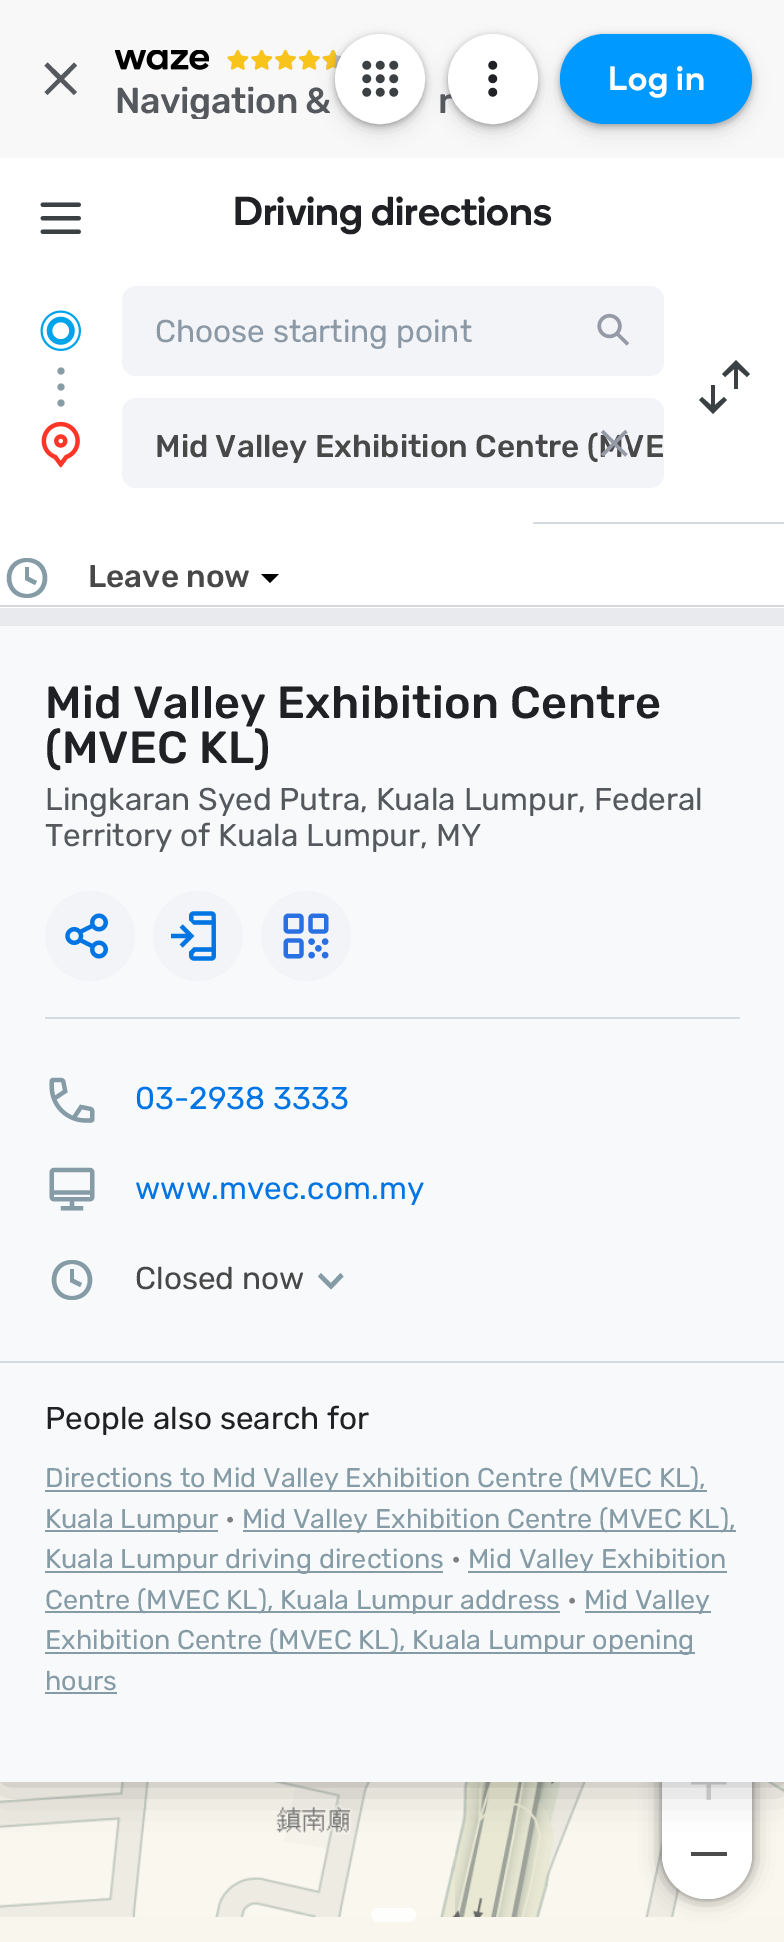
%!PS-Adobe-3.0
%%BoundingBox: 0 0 784 1942
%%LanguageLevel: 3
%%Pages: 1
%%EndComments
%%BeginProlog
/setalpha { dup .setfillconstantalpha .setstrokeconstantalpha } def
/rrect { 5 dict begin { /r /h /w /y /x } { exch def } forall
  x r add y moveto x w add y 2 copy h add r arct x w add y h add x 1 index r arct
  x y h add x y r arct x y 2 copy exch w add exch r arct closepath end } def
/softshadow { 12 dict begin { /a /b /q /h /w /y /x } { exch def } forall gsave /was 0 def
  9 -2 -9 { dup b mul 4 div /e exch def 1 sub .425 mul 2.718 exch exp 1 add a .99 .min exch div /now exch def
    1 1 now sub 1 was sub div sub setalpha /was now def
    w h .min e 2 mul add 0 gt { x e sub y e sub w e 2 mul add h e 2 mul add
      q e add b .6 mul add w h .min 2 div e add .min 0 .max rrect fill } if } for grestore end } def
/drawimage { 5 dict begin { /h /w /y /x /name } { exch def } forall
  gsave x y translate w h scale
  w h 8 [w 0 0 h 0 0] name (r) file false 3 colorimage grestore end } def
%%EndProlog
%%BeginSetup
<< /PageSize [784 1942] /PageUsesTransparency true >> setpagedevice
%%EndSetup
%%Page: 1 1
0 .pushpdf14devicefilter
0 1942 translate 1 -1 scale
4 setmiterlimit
0.976 0.965 0.929 setrgbcolor
0 0 784 1942 rectfill
(images/16.raw) 455 1782 329 135 drawimage
0 setgray
662 1737 90 162 45 11 0.3 softshadow
662 1737 90 162 45 4.5 0.3 softshadow
1 setgray
662 1737 90 162 45 rrect fill
0.847 setgray
newpath 711 1779.5 moveto 726.5 1779.5 lineto 726.5 1784.5 lineto 711 1784.5 lineto 711 1800 lineto 706.5 1800 lineto 706.5 1784.5 lineto 691 1784.5 lineto 691 1779.5 lineto 706.5 1779.5 lineto 706.5 1764 lineto 711 1764 lineto closepath fill
1 setgray
newpath 662 1818 moveto 752 1818 lineto 752 1854 lineto 752 1879 732 1899 707 1899 curveto 682 1899 662 1879 662 1854 curveto closepath fill
(images/15.raw) 0 1782 455 135 drawimage
0 setgray
0 158 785 1624 0 22.5 0.3 softshadow
0.973 setgray
0 0 784 158 rectfill
(images/4.raw) 227 50 115 20 drawimage
1 setgray
0 158 784 450 rectfill
0.235 0.251 0.263 setrgbcolor
335 43 90 90 45 9 0.15 softshadow
0 setgray
335 36 90 90 45 3.5 0.3 softshadow
1 setgray
newpath 380 79 42.5 0 360 arc closepath gsave fill grestore
5 setlinewidth
stroke
(images/1.raw) 362 60 37 37 drawimage
0.235 0.251 0.263 setrgbcolor
448 43 90 90 45 9 0.15 softshadow
0 setgray
448 36 90 90 45 3.5 0.3 softshadow
560 36 192 90 45 3.5 0.3 softshadow
0.333 0.349 0.369 setrgbcolor
newpath 57.5 79 moveto 44.5 65.5 lineto 47.5 62.5 lineto 61 75.5 lineto 74 62.5 lineto 77 65.5 lineto 64 79 lineto 77 92 lineto 74 95 lineto 60.5 82 lineto 47.5 95 lineto 44.5 92 lineto closepath fill
(images/3.raw) 115 50 94 20 drawimage
(images/5.raw) 40 202 41 32 drawimage
0.525 0.612 0.655 setrgbcolor
newpath 61 371 3.5 0 360 arc closepath fill
newpath 61 387 3.5 0 360 arc closepath fill
newpath 61 403 3.5 0 360 arc closepath fill
(images/6.raw) 40 310 41 41 drawimage
0.949 0.957 0.969 setrgbcolor
122 286 542 90 14 rrect fill
(images/7.raw) 597 313 33 33 drawimage
0.231 0.251 0.263 setrgbcolor
newpath 738 369 moveto 738 389 lineto 734 389 lineto 734 369 lineto 725 377 lineto 722 374 lineto 736 360 lineto 750 374 lineto 747 377 lineto closepath 715 405 moveto 724 397 lineto 727 400 lineto 713 414 lineto 699 400 lineto 702 397 lineto 711 405 lineto 711 385 lineto 715 385 lineto closepath fill
(images/8.raw) 41 421 39 47 drawimage
0.949 0.957 0.969 setrgbcolor
122 398 542 90 14 rrect fill
0.827 0.855 0.878 setrgbcolor
533 522 251 2 rectfill
0.522 0.608 0.651 setrgbcolor
newpath 27 594 moveto 48 594 48 562 27 562 curveto 6 562 6 594 27 594 curveto closepath 27 598 moveto 0 598 0 558 27 558 curveto 54 558 54 598 27 598 curveto closepath 29 577 moveto 37 581 lineto 35 585 lineto 25 580 lineto 25 567 lineto 29 567 lineto closepath fill
0 setgray
newpath 261 574 moveto 279 574 lineto 270 583 lineto closepath fill
0.835 0.843 0.859 setrgbcolor
0 605 784 2 rectfill
0.973 0.976 0.98 setrgbcolor
0 626 784 735 rectfill
0.91 0.918 0.929 setrgbcolor
0 608 784 18 rectfill
0.827 0.855 0.878 setrgbcolor
45 1017 695 2 rectfill
0.949 0.957 0.969 setrgbcolor
newpath 90 936 45 0 360 arc closepath fill
(images/10.raw) 65 913 43 46 drawimage
newpath 198 936 45 0 360 arc closepath fill
(images/11.raw) 171 911 45 50 drawimage
newpath 306 936 45 0 360 arc closepath fill
(images/12.raw) 283 913 46 46 drawimage
(images/13.raw) 49 1077 46 46 drawimage
(images/14.raw) 49 1167 46 44 drawimage
0.522 0.608 0.651 setrgbcolor
newpath 72 1296 moveto 93 1296 93 1264 72 1264 curveto 51 1264 51 1296 72 1296 curveto closepath 72 1300 moveto 45 1300 45 1260 72 1260 curveto 99 1260 99 1300 72 1300 curveto closepath 74 1279 moveto 82 1283 lineto 80 1287 lineto 70 1282 lineto 70 1269 lineto 74 1269 lineto closepath fill
newpath 340.5 1273 moveto 343.5 1276.5 lineto 331 1289.5 lineto 318 1276.5 lineto 321 1273 lineto 331 1283 lineto closepath fill
0.973 0.976 0.98 setrgbcolor
0 1363 784 419 rectfill
0.827 0.855 0.878 setrgbcolor
0 1361 784 2 rectfill
0.522 0.608 0.651 setrgbcolor
45 1490 662 2 rectfill
45 1530 173 2 rectfill
243 1530 493 2 rectfill
45 1571 398 2 rectfill
468 1571 259 2 rectfill
45 1611 515 2 rectfill
585 1611 126 2 rectfill
45 1652 650 2 rectfill
45 1692 72 2 rectfill
0.996 0.996 0.992 setrgbcolor
371 1908 45 14 7 rrect fill
0.298 setgray
691 1852 36 4 rectfill
gsave
115 83 479 36 rectclip
/Rubik-Medium [36 0 0 -36 0 0] selectfont
0.333 0.349 0.369 setrgbcolor
115 113 moveto -0.5 0 (Navigation &) ashow
grestore
/Rubik-Medium [36 0 0 -36 0 0] selectfont
0.333 0.349 0.369 setrgbcolor
438 113 moveto -0.5 0 (r) ashow
1 setgray
newpath 493 79 42.5 0 360 arc closepath gsave fill grestore
stroke
0.235 0.251 0.263 setrgbcolor
560 43 192 90 45 9 0.15 softshadow
0 0.6 1 setrgbcolor
560 34 192 90 45 rrect fill
/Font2-Medium [34 0 0 -34 0 0] selectfont
1 setgray
608 90 moveto 0.75 0 (Log in) ashow
(images/2.raw) 488 60 10 37 drawimage
/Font-Medium [40.5 0 0 -40.5 0 0] selectfont
0.125 0.129 0.141 setrgbcolor
233 225 moveto (Driving directions) show
/Rubik-Regular [31.5 0 0 -31.5 0 0] selectfont
0.545 0.596 0.647 setrgbcolor
155 342 moveto (Choose starting point) show
/Rubik-Medium [31.5 0 0 -31.5 0 0] selectfont
0.282 setgray
155 457 moveto (Mid Valley Exhibition Centre \(MVE) show
(images/9.raw) 600 429 28 28 drawimage
88 587 moveto (Leave now) show
/Rubik-Medium [45 0 0 -45 0 0] selectfont
0.125 0.129 0.141 setrgbcolor
45 718 moveto 0.35 0 (Mid Valley Exhibition Centre) ashow
45 763 moveto 0.35 0 (\(MVEC KL\)) ashow
/Rubik-Regular [31.5 0 0 -31.5 0 0] selectfont
0.333 0.349 0.369 setrgbcolor
45 810 moveto (Lingkaran Syed Putra, Kuala Lumpur, Federal) show
45 846 moveto (Territory of Kuala Lumpur, MY) show
0 0.459 0.89 setrgbcolor
135 1109 moveto (03-2938 3333) show
135 1199 moveto (www.mvec.com.my) show
0.282 setgray
135 1289 moveto (Closed now) show
0.125 0.129 0.141 setrgbcolor
45 1429 moveto (People also search for) show
/Rubik-Regular [27 0 0 -27 0 0] selectfont
0.522 0.608 0.651 setrgbcolor
45 1487 moveto (Directions to Mid Valley Exhibition Centre \(MVEC KL\),) show
45 1528 moveto (Kuala Lumpur) show
0.506 setgray
225 1528 moveto (•) show
0.522 0.608 0.651 setrgbcolor
242 1528 moveto (Mid Valley Exhibition Centre \(MVEC KL\),) show
45 1568 moveto (Kuala Lumpur driving directions) show
0.506 setgray
451 1568 moveto (•) show
0.522 0.608 0.651 setrgbcolor
468 1568 moveto (Mid Valley Exhibition) show
45 1609 moveto (Centre \(MVEC KL\), Kuala Lumpur address) show
0.506 setgray
567 1609 moveto (•) show
0.522 0.608 0.651 setrgbcolor
584 1609 moveto (Mid Valley) show
45 1649 moveto (Exhibition Centre \(MVEC KL\), Kuala Lumpur opening) show
45 1690 moveto (hours) show
.poppdf14devicefilter showpage
%%EOF
